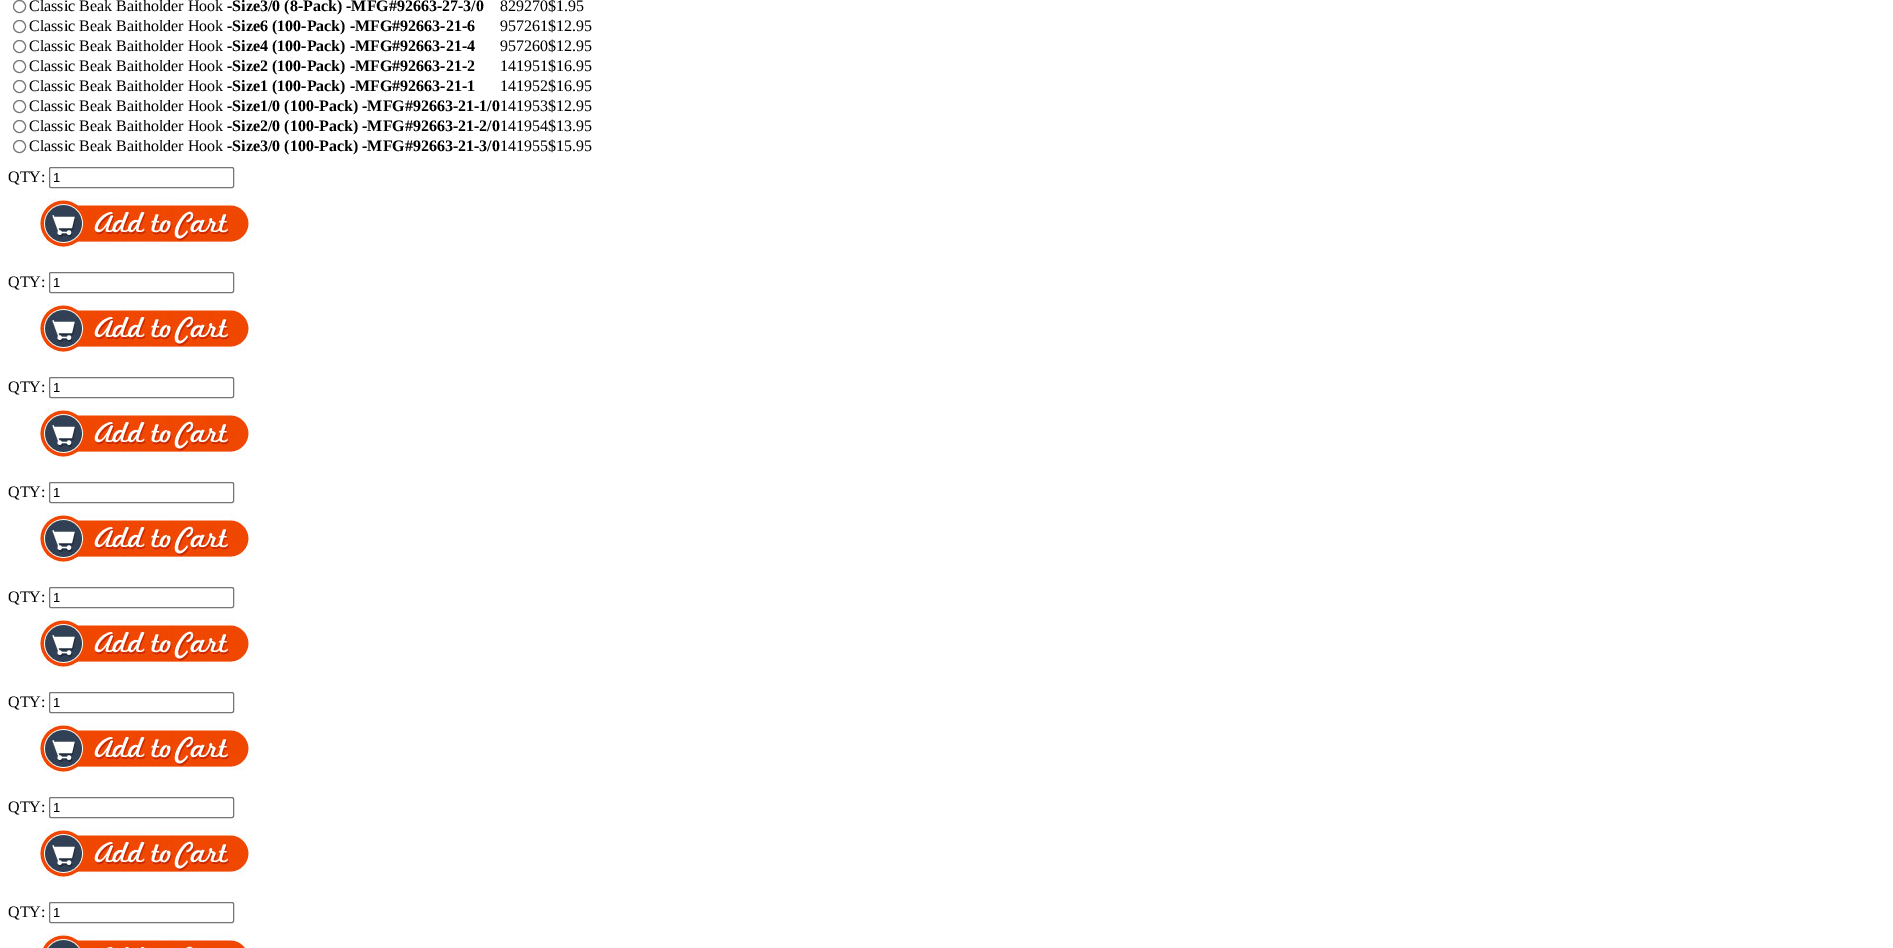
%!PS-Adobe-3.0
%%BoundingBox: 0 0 1893 948
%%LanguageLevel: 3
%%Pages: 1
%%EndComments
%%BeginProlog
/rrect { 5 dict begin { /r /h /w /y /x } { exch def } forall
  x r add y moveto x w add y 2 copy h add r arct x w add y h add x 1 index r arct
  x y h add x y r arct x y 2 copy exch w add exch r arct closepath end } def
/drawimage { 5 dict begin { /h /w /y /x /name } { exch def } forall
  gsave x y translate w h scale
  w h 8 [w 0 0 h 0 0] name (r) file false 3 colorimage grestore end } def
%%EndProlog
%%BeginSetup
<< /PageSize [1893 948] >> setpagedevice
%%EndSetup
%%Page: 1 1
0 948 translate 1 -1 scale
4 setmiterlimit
1 setgray
0 0 1893 948 rectfill
0.463 setgray
newpath 19.5 6.5 6 0 360 arc closepath stroke
newpath 19.5 26.5 6 0 360 arc closepath stroke
newpath 19.5 46.5 6 0 360 arc closepath stroke
newpath 19.5 66.5 6 0 360 arc closepath stroke
newpath 19.5 86.5 6 0 360 arc closepath stroke
newpath 19.5 106.5 6 0 360 arc closepath stroke
newpath 19.5 126.5 6 0 360 arc closepath stroke
newpath 19.5 146.5 6 0 360 arc closepath stroke
49.5 167.5 184 20 1.5 rrect stroke
(images/1.raw) 38 198 213 50 drawimage
49.5 272.5 184 20 1.5 rrect stroke
(images/1.raw) 38 303 213 50 drawimage
49.5 377.5 184 20 1.5 rrect stroke
(images/1.raw) 38 408 213 50 drawimage
49.5 482.5 184 20 1.5 rrect stroke
(images/1.raw) 38 513 213 50 drawimage
49.5 587.5 184 20 1.5 rrect stroke
(images/1.raw) 38 618 213 50 drawimage
49.5 692.5 184 20 1.5 rrect stroke
(images/1.raw) 38 723 213 50 drawimage
49.5 797.5 184 20 1.5 rrect stroke
(images/1.raw) 38 828 213 50 drawimage
49.5 902.5 184 20 1.5 rrect stroke
(images/2.raw) 38 933 208 15 drawimage
/LiberationSerif-Regular [16 0 0 -16 0 0] selectfont
0 setgray
29 11 moveto (Classic Beak Baitholder Hook) show
/LiberationSerif-Bold [16 0 0 -16 0 0] selectfont
227 11 moveto (-Size3/0 \(8-Pack\) -MFG#92663-27-3/0) show
/LiberationSerif-Regular [16 0 0 -16 0 0] selectfont
500 11 moveto (829270$1.95) show
29 31 moveto (Classic Beak Baitholder Hook) show
/LiberationSerif-Bold [16 0 0 -16 0 0] selectfont
227 31 moveto (-Size6 \(100-Pack\) -MFG#92663-21-6) show
/LiberationSerif-Regular [16 0 0 -16 0 0] selectfont
500 31 moveto (957261$12.95) show
29 51 moveto (Classic Beak Baitholder Hook) show
/LiberationSerif-Bold [16 0 0 -16 0 0] selectfont
227 51 moveto (-Size4 \(100-Pack\) -MFG#92663-21-4) show
/LiberationSerif-Regular [16 0 0 -16 0 0] selectfont
500 51 moveto (957260$12.95) show
29 71 moveto (Classic Beak Baitholder Hook) show
/LiberationSerif-Bold [16 0 0 -16 0 0] selectfont
227 71 moveto (-Size2 \(100-Pack\) -MFG#92663-21-2) show
/LiberationSerif-Regular [16 0 0 -16 0 0] selectfont
500 71 moveto (141951$16.95) show
29 91 moveto (Classic Beak Baitholder Hook) show
/LiberationSerif-Bold [16 0 0 -16 0 0] selectfont
227 91 moveto (-Size1 \(100-Pack\) -MFG#92663-21-1) show
/LiberationSerif-Regular [16 0 0 -16 0 0] selectfont
500 91 moveto (141952$16.95) show
29 111 moveto (Classic Beak Baitholder Hook) show
/LiberationSerif-Bold [16 0 0 -16 0 0] selectfont
227 111 moveto (-Size1/0 \(100-Pack\) -MFG#92663-21-1/0) show
/LiberationSerif-Regular [16 0 0 -16 0 0] selectfont
500 111 moveto (141953$12.95) show
29 131 moveto (Classic Beak Baitholder Hook) show
/LiberationSerif-Bold [16 0 0 -16 0 0] selectfont
227 131 moveto (-Size2/0 \(100-Pack\) -MFG#92663-21-2/0) show
/LiberationSerif-Regular [16 0 0 -16 0 0] selectfont
500 131 moveto (141954$13.95) show
29 151 moveto (Classic Beak Baitholder Hook) show
/LiberationSerif-Bold [16 0 0 -16 0 0] selectfont
227 151 moveto (-Size3/0 \(100-Pack\) -MFG#92663-21-3/0) show
/LiberationSerif-Regular [16 0 0 -16 0 0] selectfont
500 151 moveto (141955$15.95) show
8 182 moveto (QTY:) show
/LiberationSans-Regular [13 0 0 -13 0 0] selectfont
53 182 moveto (1) show
/LiberationSerif-Regular [16 0 0 -16 0 0] selectfont
8 287 moveto (QTY:) show
/LiberationSans-Regular [13 0 0 -13 0 0] selectfont
53 287 moveto (1) show
/LiberationSerif-Regular [16 0 0 -16 0 0] selectfont
8 392 moveto (QTY:) show
/LiberationSans-Regular [13 0 0 -13 0 0] selectfont
53 392 moveto (1) show
/LiberationSerif-Regular [16 0 0 -16 0 0] selectfont
8 497 moveto (QTY:) show
/LiberationSans-Regular [13 0 0 -13 0 0] selectfont
53 497 moveto (1) show
/LiberationSerif-Regular [16 0 0 -16 0 0] selectfont
8 602 moveto (QTY:) show
/LiberationSans-Regular [13 0 0 -13 0 0] selectfont
53 602 moveto (1) show
/LiberationSerif-Regular [16 0 0 -16 0 0] selectfont
8 707 moveto (QTY:) show
/LiberationSans-Regular [13 0 0 -13 0 0] selectfont
53 707 moveto (1) show
/LiberationSerif-Regular [16 0 0 -16 0 0] selectfont
8 812 moveto (QTY:) show
/LiberationSans-Regular [13 0 0 -13 0 0] selectfont
53 812 moveto (1) show
/LiberationSerif-Regular [16 0 0 -16 0 0] selectfont
8 917 moveto (QTY:) show
/LiberationSans-Regular [13 0 0 -13 0 0] selectfont
53 917 moveto (1) show
showpage
%%EOF
